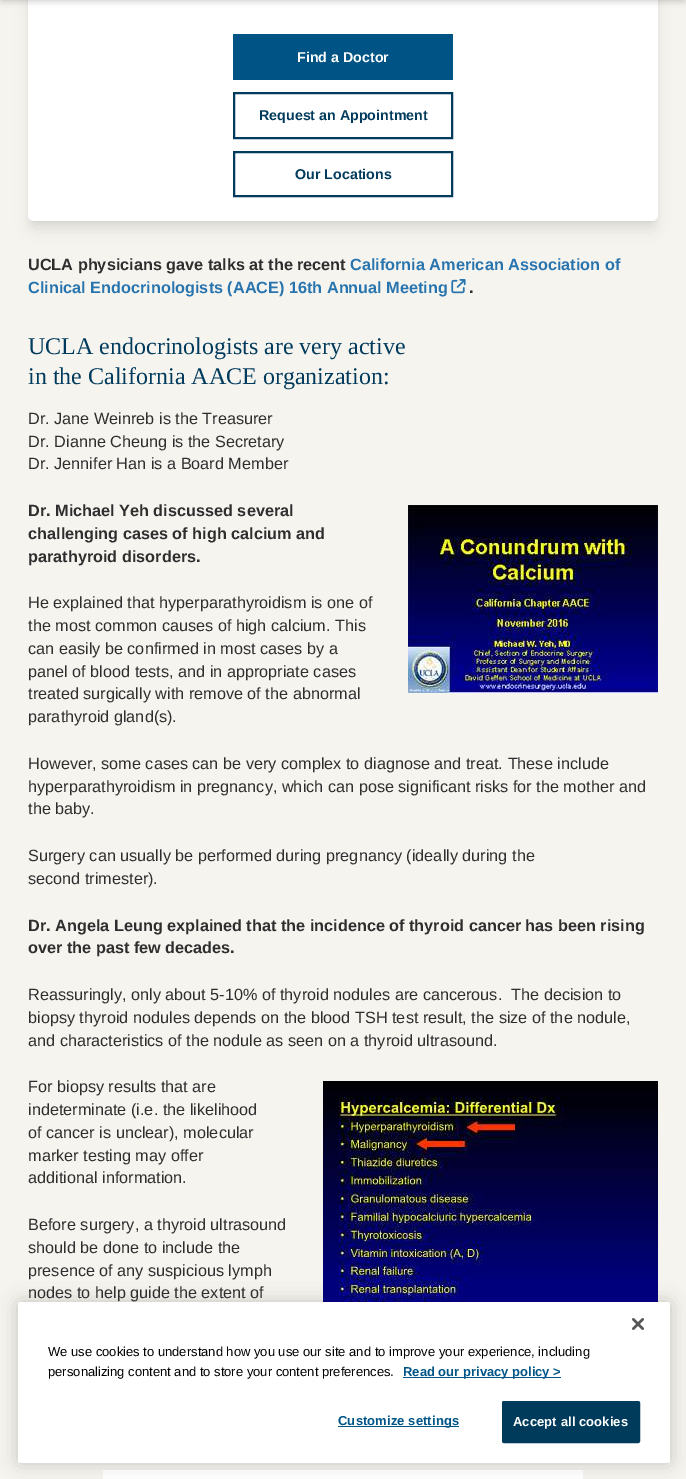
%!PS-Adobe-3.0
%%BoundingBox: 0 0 686 1479
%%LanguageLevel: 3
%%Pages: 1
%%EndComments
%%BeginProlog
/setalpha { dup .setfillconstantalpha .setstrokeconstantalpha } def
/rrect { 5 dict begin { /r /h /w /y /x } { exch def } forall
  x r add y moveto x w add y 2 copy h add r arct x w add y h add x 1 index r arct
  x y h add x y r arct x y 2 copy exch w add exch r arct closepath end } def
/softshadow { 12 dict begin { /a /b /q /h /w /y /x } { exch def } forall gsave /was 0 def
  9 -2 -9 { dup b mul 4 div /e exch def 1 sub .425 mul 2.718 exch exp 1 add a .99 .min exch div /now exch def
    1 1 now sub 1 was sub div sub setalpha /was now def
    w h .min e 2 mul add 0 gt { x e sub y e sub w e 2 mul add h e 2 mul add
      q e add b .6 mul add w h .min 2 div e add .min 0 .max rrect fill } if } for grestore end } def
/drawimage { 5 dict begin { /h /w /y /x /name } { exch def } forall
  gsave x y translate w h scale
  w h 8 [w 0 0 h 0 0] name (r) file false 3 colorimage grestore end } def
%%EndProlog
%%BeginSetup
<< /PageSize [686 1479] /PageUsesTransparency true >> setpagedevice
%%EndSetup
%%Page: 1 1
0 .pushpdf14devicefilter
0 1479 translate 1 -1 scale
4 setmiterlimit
0.965 0.957 0.933 setrgbcolor
0 0 686 1479 rectfill
0 setgray
32 -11 622 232 2 3 0.1 softshadow
31 -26 624 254 3 7.5 0.1 softshadow
1 setgray
28 -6 630 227 6 rrect fill
0 setgray
2 -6 682 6 0 2 0.1 softshadow
1 -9 684 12 0 3 0.1 softshadow
0 0.329 0.522 setrgbcolor
233 34 220 46 rectfill
0 0.227 0.361 setrgbcolor
2 setlinewidth
234 93 218 45 rectstroke
234 152 218 44 rectstroke
(images/1.raw) 451 279 15 15 drawimage
(images/2.raw) 408 505 250 188 drawimage
(images/3.raw) 323 1081 335 221 drawimage
1 setgray
103 1470 480 9 rectfill
0 setgray
18 1302 652 161 2.5 9 0.2 softshadow
1 setgray
18 1302 652 161 2.5 rrect fill
(images/4.raw) 632 1318 12 12 drawimage
0 0.333 0.529 setrgbcolor
403 1377 158 1 rectfill
338 1426 121 1 rectfill
0 0.231 0.361 setrgbcolor
502.5 1401.5 137 41 1.5 rrect gsave fill grestore
1 setlinewidth
stroke
/LiberationSans-Bold [14.25 0 0 -14.25 0 0] selectfont
1 setgray
297 62 moveto (Find a Doctor) show
0 0.227 0.361 setrgbcolor
259 120 moveto (Request an Appointment) show
295 179 moveto (Our Locations) show
/LiberationSans-Bold [16.25 0 0 -16.25 0 0] selectfont
0.18 setgray
28 270 moveto (UCLA physicians gave talks at the recent) show
0.157 0.455 0.686 setrgbcolor
350 270 moveto (California American Association of) show
28 293 moveto (Clinical Endocrinologists \(AACE\) 16th Annual Meeting) show
0.18 setgray
469 293 moveto (.) show
/LiberationSerif-Regular [24 0 0 -24 0 0] selectfont
0 0.227 0.361 setrgbcolor
28 354 moveto (UCLA endocrinologists are very active) show
28 384 moveto (in the California AACE organization:) show
/LiberationSans-Regular [16.25 0 0 -16.25 0 0] selectfont
0.18 setgray
28 424 moveto (Dr. Jane Weinreb is the Treasurer) show
28 447 moveto (Dr. Dianne Cheung is the Secretary) show
28 469 moveto (Dr. Jennifer Han is a Board Member) show
/LiberationSans-Bold [16.25 0 0 -16.25 0 0] selectfont
28 516 moveto (Dr. Michael Yeh discussed several) show
28 539 moveto (challenging cases of high calcium and) show
28 562 moveto (parathyroid disorders.) show
/LiberationSans-Regular [16.25 0 0 -16.25 0 0] selectfont
28 608 moveto (He explained that hyperparathyroidism is one of) show
28 631 moveto (the most common causes of high calcium. This) show
28 654 moveto (can easily be confirmed in most cases by a) show
28 677 moveto (panel of blood tests, and in appropriate cases) show
28 699 moveto (treated surgically with remove of the abnormal) show
28 722 moveto (parathyroid gland\(s\).) show
28 769 moveto (However, some cases can be very complex to diagnose and treat. These include) show
28 792 moveto (hyperparathyroidism in pregnancy, which can pose significant risks for the mother and) show
28 814 moveto (the baby.) show
28 861 moveto (Surgery can usually be performed during pregnancy \(ideally during the) show
28 884 moveto (second trimester\).) show
/LiberationSans-Bold [16.25 0 0 -16.25 0 0] selectfont
28 931 moveto (Dr. Angela Leung explained that the incidence of thyroid cancer has been rising) show
28 953 moveto (over the past few decades.) show
/LiberationSans-Regular [16.25 0 0 -16.25 0 0] selectfont
28 1000 moveto (Reassuringly, only about 5-10% of thyroid nodules are cancerous.  The decision to) show
28 1023 moveto (biopsy thyroid nodules depends on the blood TSH test result, the size of the nodule,) show
28 1046 moveto (and characteristics of the nodule as seen on a thyroid ultrasound.) show
28 1092 moveto (For biopsy results that are) show
28 1115 moveto (indeterminate \(i.e. the likelihood) show
28 1138 moveto (of cancer is unclear\), molecular) show
28 1161 moveto (marker testing may offer) show
28 1183 moveto (additional information.) show
28 1230 moveto (Before surgery, a thyroid ultrasound) show
28 1253 moveto (should be done to include the) show
28 1276 moveto (presence of any suspicious lymph) show
28 1298 moveto (nodes to help guide the extent of) show
/LiberationSans-Regular [13 0 0 -13 0 0] selectfont
0 setgray
48 1356 moveto (We use cookies to understand how you use our site and to improve your experience, including) show
48 1376 moveto (personalizing content and to store your content preferences.) show
/LiberationSans-Bold [13 0 0 -13 0 0] selectfont
0 0.333 0.529 setrgbcolor
403 1376 moveto (Read our privacy policy >) show
338 1425 moveto 0.1 0 (Customize settings) ashow
1 setgray
513 1426 moveto 0.1 0 (Accept all cookies) ashow
.poppdf14devicefilter showpage
%%EOF
